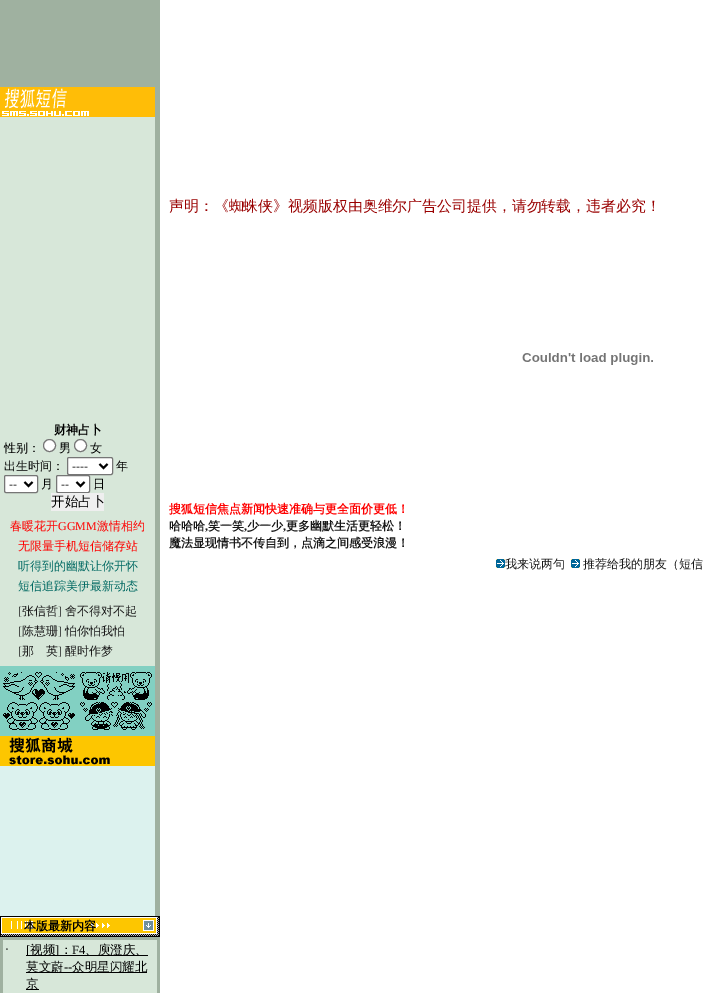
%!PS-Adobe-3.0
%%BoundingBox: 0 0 708 993
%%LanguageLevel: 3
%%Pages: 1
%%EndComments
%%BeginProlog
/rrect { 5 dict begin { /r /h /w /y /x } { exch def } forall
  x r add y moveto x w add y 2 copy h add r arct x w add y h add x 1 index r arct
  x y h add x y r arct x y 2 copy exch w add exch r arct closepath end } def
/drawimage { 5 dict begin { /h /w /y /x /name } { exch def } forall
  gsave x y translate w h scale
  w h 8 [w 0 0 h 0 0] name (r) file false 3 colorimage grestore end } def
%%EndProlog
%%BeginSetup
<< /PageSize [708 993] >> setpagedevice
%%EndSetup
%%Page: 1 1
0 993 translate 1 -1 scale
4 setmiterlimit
1 setgray
0 0 708 993 rectfill
(images/1.raw) 522 353 131 12 drawimage
(images/2.raw) 496 559 9 9 drawimage
(images/2.raw) 571 559 9 9 drawimage
0.624 0.694 0.627 setrgbcolor
0 0 160 993 rectfill
0.843 0.906 0.851 setrgbcolor
0 117 155 549 rectfill
(images/3.raw) 0 87 155 30 drawimage
1 setgray
newpath 49.5 445.5 6 0 360 arc closepath gsave fill grestore
0.463 setgray
stroke
1 setgray
newpath 80.5 445.5 6 0 360 arc closepath gsave fill grestore
0.463 setgray
stroke
1 setgray
67.5 457.5 45 17 1.5 rrect gsave fill grestore
0.463 setgray
stroke
0 setgray
2 setlinewidth
newpath 99.5 464 moveto 103.5 468 lineto 107.5 464 lineto stroke
1 setgray
4.5 475.5 33 17 1.5 rrect gsave fill grestore
0.463 setgray
1 setlinewidth
stroke
0 setgray
2 setlinewidth
newpath 24.5 482 moveto 28.5 486 lineto 32.5 482 lineto stroke
1 setgray
56.5 475.5 33 17 1.5 rrect gsave fill grestore
0.463 setgray
1 setlinewidth
stroke
0 setgray
2 setlinewidth
newpath 76.5 482 moveto 80.5 486 lineto 84.5 482 lineto stroke
0.937 setgray
51 493 53 18 rectfill
0.51 0.816 0.761 setrgbcolor
0 666 155 70 rectfill
(images/4.raw) 3 672 72 28 drawimage
(images/5.raw) 80 672 72 28 drawimage
(images/6.raw) 3 702 72 28 drawimage
(images/7.raw) 80 702 72 28 drawimage
0.863 0.949 0.933 setrgbcolor
0 766 155 150 rectfill
(images/8.raw) 0 736 155 30 drawimage
(images/9.raw) 0 916 160 21 drawimage
0.843 0.906 0.851 setrgbcolor
3 940 154 53 rectfill
0 setgray
26 955 122 1 rectfill
26 972 121 1 rectfill
26 989 13 1 rectfill
/WenQuanYiZenHei-Medium [14.9 0 0 -14.9 0 0] selectfont
0.6 0 0 setrgbcolor
169 211 moveto (声明：《蜘蛛侠》视频版权由奥维尔广告公司提供，请勿转载，违者必究！) show
/WenQuanYiZenHei-Bold [12 0 0 -12 0 0] selectfont
1 0 0 setrgbcolor
169 513 moveto (搜狐短信焦点新闻快速准确与更全面价更低！) show
0.098 setgray
169 530 moveto (哈哈哈) show
/LiberationSerif-Bold [12 0 0 -12 0 0] selectfont
205 530 moveto (,) show
/WenQuanYiZenHei-Bold [12 0 0 -12 0 0] selectfont
208 530 moveto (笑一笑) show
/LiberationSerif-Bold [12 0 0 -12 0 0] selectfont
244 530 moveto (,) show
/WenQuanYiZenHei-Bold [12 0 0 -12 0 0] selectfont
247 530 moveto (少一少) show
/LiberationSerif-Bold [12 0 0 -12 0 0] selectfont
283 530 moveto (,) show
/WenQuanYiZenHei-Bold [12 0 0 -12 0 0] selectfont
286 530 moveto (更多幽默生活更轻松！) show
169 547 moveto (魔法显现情书不传自到，点滴之间感受浪漫！) show
/WenQuanYiZenHei-Medium [12 0 0 -12 0 0] selectfont
505 568 moveto (我来说两句) show
583 568 moveto (推荐给我的朋友（短信) show
/WenQuanYiZenHei-Bold [12 0 0 -12 0 0] selectfont
0 setgray
54 434 moveto (财神占卜) show
/WenQuanYiZenHei-Medium [12 0 0 -12 0 0] selectfont
4 452 moveto (性别：) show
59 452 moveto (男) show
90 452 moveto (女) show
4 470 moveto (出生时间：) show
/LiberationSerif-Regular [12 0 0 -12 0 0] selectfont
72 470 moveto (----) show
/WenQuanYiZenHei-Medium [12 0 0 -12 0 0] selectfont
116 470 moveto (年) show
/LiberationSerif-Regular [12 0 0 -12 0 0] selectfont
9 488 moveto (--) show
/WenQuanYiZenHei-Medium [12 0 0 -12 0 0] selectfont
41 488 moveto (月) show
/LiberationSerif-Regular [12 0 0 -12 0 0] selectfont
61 488 moveto (--) show
/WenQuanYiZenHei-Medium [12 0 0 -12 0 0] selectfont
93 488 moveto (日) show
/WenQuanYiZenHei-Medium [13.5 0 0 -13.5 0 0] selectfont
51 506 moveto (开始占卜) show
/WenQuanYiZenHei-Medium [12 0 0 -12 0 0] selectfont
1 0 0 setrgbcolor
10 530 moveto (春暖花开) show
/LiberationSerif-Regular [12 0 0 -12 0 0] selectfont
58 530 moveto (GGMM) show
/WenQuanYiZenHei-Medium [12 0 0 -12 0 0] selectfont
97 530 moveto (激情相约) show
18 550 moveto (无限量手机短信储存站) show
0.012 0.42 0.392 setrgbcolor
18 570 moveto (听得到的幽默让你开怀) show
18 590 moveto (短信追踪美伊最新动态) show
/LiberationSerif-Regular [12 0 0 -12 0 0] selectfont
0.098 setgray
18 615 moveto ([) show
/WenQuanYiZenHei-Medium [12 0 0 -12 0 0] selectfont
22 615 moveto (张信哲) show
/LiberationSerif-Regular [12 0 0 -12 0 0] selectfont
58 615 moveto (]) show
/WenQuanYiZenHei-Medium [12 0 0 -12 0 0] selectfont
65 615 moveto (舍不得对不起) show
/LiberationSerif-Regular [12 0 0 -12 0 0] selectfont
18 635 moveto ([) show
/WenQuanYiZenHei-Medium [12 0 0 -12 0 0] selectfont
22 635 moveto (陈慧珊) show
/LiberationSerif-Regular [12 0 0 -12 0 0] selectfont
58 635 moveto (]) show
/WenQuanYiZenHei-Medium [12 0 0 -12 0 0] selectfont
65 635 moveto (怕你怕我怕) show
/LiberationSerif-Regular [12 0 0 -12 0 0] selectfont
18 655 moveto ([) show
/WenQuanYiZenHei-Medium [12 0 0 -12 0 0] selectfont
22 655 moveto (那　英) show
/LiberationSerif-Regular [12 0 0 -12 0 0] selectfont
58 655 moveto (]) show
/WenQuanYiZenHei-Medium [12 0 0 -12 0 0] selectfont
65 655 moveto (醒时作梦) show
/WenQuanYiZenHei-Bold [12 0 0 -12 0 0] selectfont
0 setgray
24 930 moveto (本版最新内容) show
/LiberationSerif-Regular [12 0 0 -12 0 0] selectfont
5 953 moveto (·) show
/LiberationSerif-Regular [12.5 0 0 -12.5 0 0] selectfont
26 954 moveto ([) show
/WenQuanYiZenHei-Medium [12.5 0 0 -12.5 0 0] selectfont
30 954 moveto (视频) show
/LiberationSerif-Regular [12.5 0 0 -12.5 0 0] selectfont
55 954 moveto (]) show
/WenQuanYiZenHei-Medium [12.5 0 0 -12.5 0 0] selectfont
60 954 moveto (：) show
/LiberationSerif-Regular [12.5 0 0 -12.5 0 0] selectfont
72 954 moveto (F4) show
/WenQuanYiZenHei-Medium [12.5 0 0 -12.5 0 0] selectfont
85 954 moveto (、庾澄庆、) show
26 971 moveto (莫文蔚) show
/LiberationSerif-Regular [12.5 0 0 -12.5 0 0] selectfont
64 971 moveto (--) show
/WenQuanYiZenHei-Medium [12.5 0 0 -12.5 0 0] selectfont
72 971 moveto (众明星闪耀北) show
26 988 moveto (京) show
showpage
%%EOF
